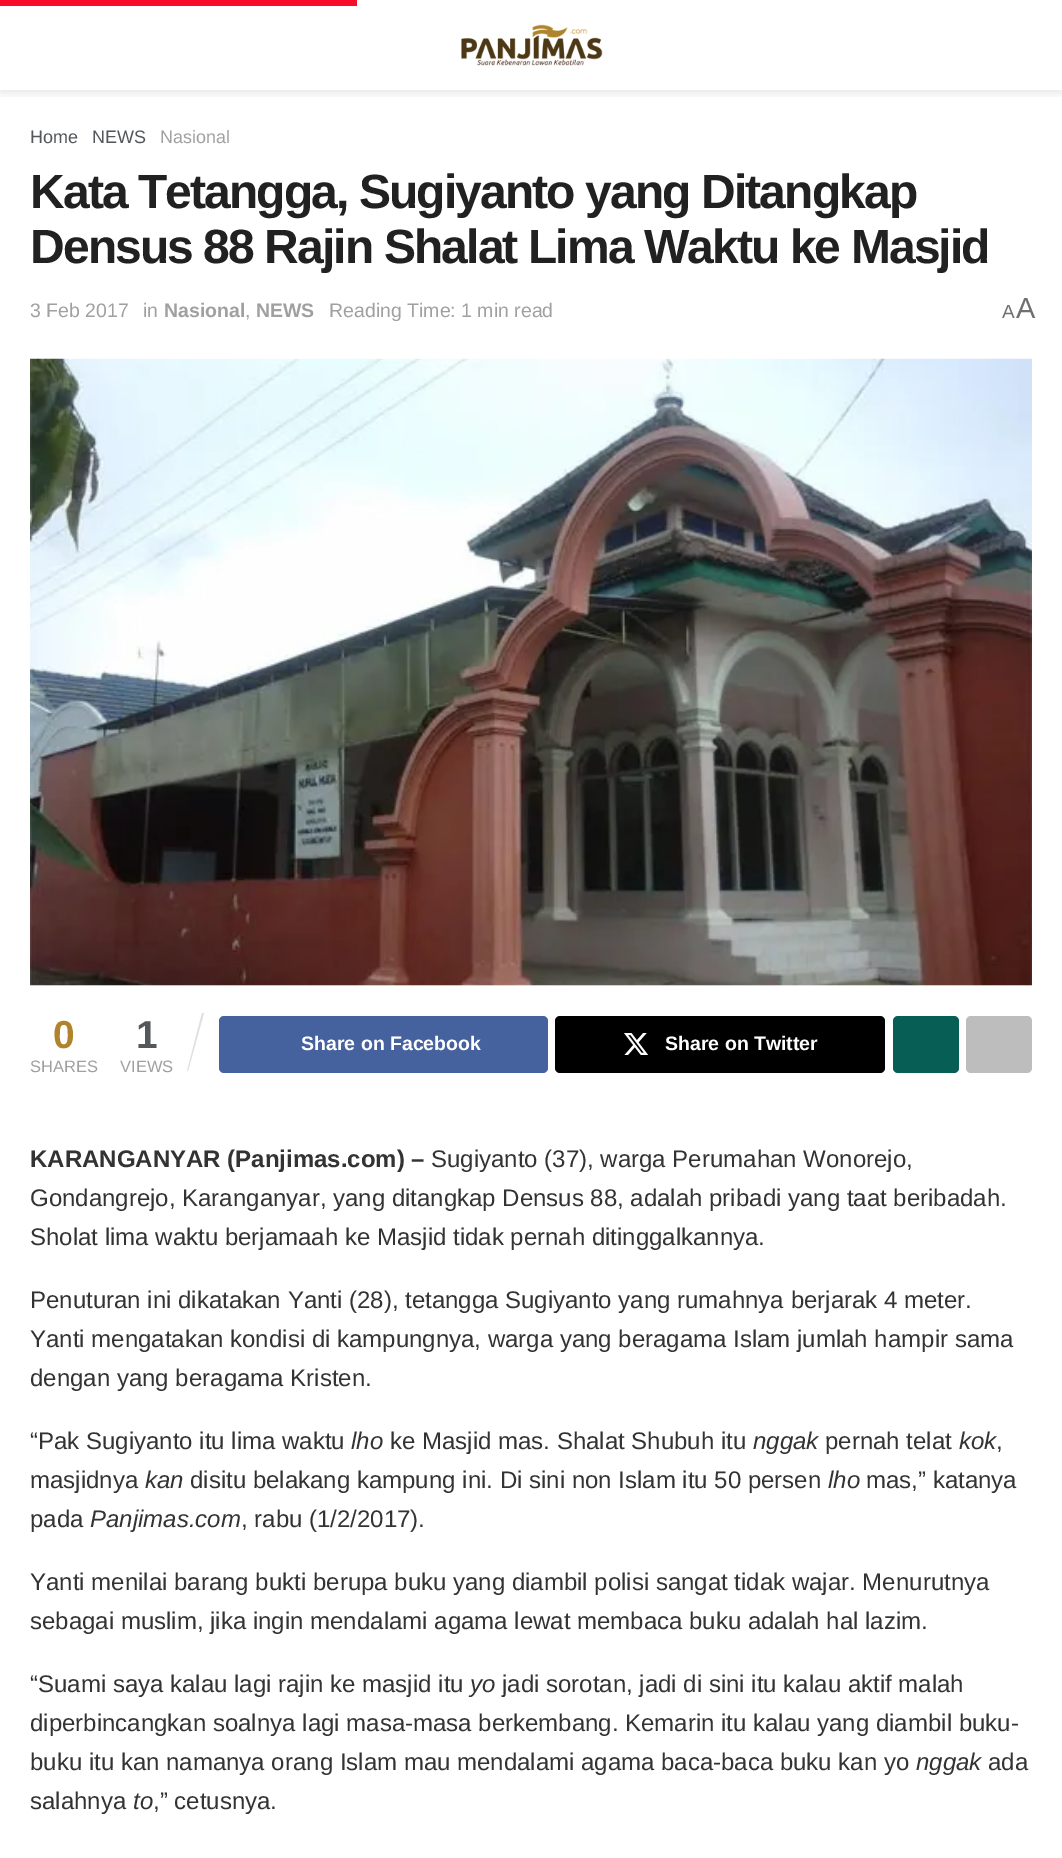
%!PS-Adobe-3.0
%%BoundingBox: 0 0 1062 1858
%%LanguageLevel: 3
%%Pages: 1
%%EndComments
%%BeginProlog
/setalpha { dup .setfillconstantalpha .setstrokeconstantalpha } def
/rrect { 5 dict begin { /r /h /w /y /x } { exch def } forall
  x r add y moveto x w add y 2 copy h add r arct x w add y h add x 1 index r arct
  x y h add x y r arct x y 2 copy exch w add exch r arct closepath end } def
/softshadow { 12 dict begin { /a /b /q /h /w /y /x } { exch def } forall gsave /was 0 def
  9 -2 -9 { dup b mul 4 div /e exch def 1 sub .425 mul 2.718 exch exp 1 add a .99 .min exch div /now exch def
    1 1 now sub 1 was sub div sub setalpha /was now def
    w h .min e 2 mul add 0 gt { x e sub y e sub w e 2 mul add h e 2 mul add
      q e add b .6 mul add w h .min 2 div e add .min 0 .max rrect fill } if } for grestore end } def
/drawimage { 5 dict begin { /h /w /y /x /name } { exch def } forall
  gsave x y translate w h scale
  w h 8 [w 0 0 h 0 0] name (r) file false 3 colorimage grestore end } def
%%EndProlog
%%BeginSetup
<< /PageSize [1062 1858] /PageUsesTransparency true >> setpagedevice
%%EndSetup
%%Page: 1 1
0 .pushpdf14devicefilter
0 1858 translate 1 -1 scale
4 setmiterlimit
1 setgray
0 0 1062 1858 rectfill
gsave
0 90 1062 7 rectclip
0 setgray
0 3 1062 90 0 4.5 0.1 softshadow
grestore
0.969 0.051 0.157 setrgbcolor
0 0 357 6 rectfill
(images/1.raw) 461 24 142 42 drawimage
0.969 setgray
30 985 1002 1 rectfill
(images/2.raw) 30 358 1002 628 drawimage
0.878 setgray
newpath 202 1013 moveto 204 1013 lineto 188 1071 lineto 187 1071 lineto closepath fill
0.271 0.384 0.624 setrgbcolor
219 1016 329 57 5 rrect fill
0 setgray
555 1016 330 57 5 rrect fill
(images/3.raw) 624 1033 25 22 drawimage
0.027 0.369 0.329 setrgbcolor
893 1016 66 57 5 rrect fill
0.741 setgray
966 1016 66 57 5 rrect fill
/LiberationSans-Regular [18 0 0 -18 0 0] selectfont
0.325 0.345 0.361 setrgbcolor
30 143 moveto (Home) show
92 143 moveto (NEWS) show
0.627 setgray
160 143 moveto (Nasional) show
/LiberationSans-Bold [48 0 0 -48 0 0] selectfont
0.129 setgray
30 208 moveto -1.9 0 (Kata Tetangga, Sugiyanto yang Ditangkap) ashow
30 263 moveto -1.9 0 (Densus 88 Rajin Shalat Lima Waktu ke Masjid) ashow
/LiberationSans-Regular [19.5 0 0 -19.5 0 0] selectfont
0.627 setgray
30 317 moveto (3 Feb 2017) show
143 317 moveto (in) show
/LiberationSans-Bold [19.5 0 0 -19.5 0 0] selectfont
164 317 moveto (Nasional) show
/LiberationSans-Regular [19.5 0 0 -19.5 0 0] selectfont
245 317 moveto (,) show
/LiberationSans-Bold [19.5 0 0 -19.5 0 0] selectfont
256 317 moveto (NEWS) show
/LiberationSans-Regular [19.5 0 0 -19.5 0 0] selectfont
329 317 moveto (Reading Time: 1 min read) show
/LiberationSans-Regular [19 0 0 -19 0 0] selectfont
0.439 setgray
1002 318 moveto (A) show
/LiberationSans-Regular [29 0 0 -29 0 0] selectfont
1016 318 moveto (A) show
/LiberationSans-Bold [39 0 0 -39 0 0] selectfont
0.69 0.518 0.173 setrgbcolor
53 1048 moveto (0) show
/LiberationSans-Regular [16.5 0 0 -16.5 0 0] selectfont
0.627 setgray
30 1072 moveto (SHARES) show
/LiberationSans-Bold [39 0 0 -39 0 0] selectfont
0.325 0.345 0.361 setrgbcolor
136 1048 moveto (1) show
/LiberationSans-Regular [16.5 0 0 -16.5 0 0] selectfont
0.627 setgray
120 1072 moveto (VIEWS) show
/LiberationSans-Bold [19.5 0 0 -19.5 0 0] selectfont
1 setgray
301 1050 moveto (Share on Facebook) show
665 1050 moveto (Share on Twitter) show
/LiberationSans-Bold [24 0 0 -24 0 0] selectfont
0.2 setgray
30 1167 moveto (KARANGANYAR \(Panjimas.com\) –) show
/LiberationSans-Regular [24 0 0 -24 0 0] selectfont
431 1167 moveto (Sugiyanto \(37\), warga Perumahan Wonorejo,) show
30 1206 moveto (Gondangrejo, Karanganyar, yang ditangkap Densus 88, adalah pribadi yang taat beribadah.) show
30 1245 moveto (Sholat lima waktu berjamaah ke Masjid tidak pernah ditinggalkannya.) show
30 1308 moveto (Penuturan ini dikatakan Yanti \(28\), tetangga Sugiyanto yang rumahnya berjarak 4 meter.) show
30 1347 moveto (Yanti mengatakan kondisi di kampungnya, warga yang beragama Islam jumlah hampir sama) show
30 1386 moveto (dengan yang beragama Kristen.) show
30 1449 moveto (“Pak Sugiyanto itu lima waktu) show
/LiberationSans-Italic [24 0 0 -24 0 0] selectfont
351 1449 moveto (lho) show
/LiberationSans-Regular [24 0 0 -24 0 0] selectfont
390 1449 moveto (ke Masjid mas. Shalat Shubuh itu) show
/LiberationSans-Italic [24 0 0 -24 0 0] selectfont
753 1449 moveto (nggak) show
/LiberationSans-Regular [24 0 0 -24 0 0] selectfont
825 1449 moveto (pernah telat) show
/LiberationSans-Italic [24 0 0 -24 0 0] selectfont
959 1449 moveto (kok) show
/LiberationSans-Regular [24 0 0 -24 0 0] selectfont
996 1449 moveto (,) show
30 1488 moveto (masjidnya) show
/LiberationSans-Italic [24 0 0 -24 0 0] selectfont
145 1488 moveto (kan) show
/LiberationSans-Regular [24 0 0 -24 0 0] selectfont
190 1488 moveto (disitu belakang kampung ini. Di sini non Islam itu 50 persen) show
/LiberationSans-Italic [24 0 0 -24 0 0] selectfont
828 1488 moveto (lho) show
/LiberationSans-Regular [24 0 0 -24 0 0] selectfont
866 1488 moveto (mas,” katanya) show
30 1527 moveto (pada) show
/LiberationSans-Italic [24 0 0 -24 0 0] selectfont
90 1527 moveto (Panjimas.com) show
/LiberationSans-Regular [24 0 0 -24 0 0] selectfont
241 1527 moveto (, rabu \(1/2/2017\).) show
30 1590 moveto (Yanti menilai barang bukti berupa buku yang diambil polisi sangat tidak wajar. Menurutnya) show
30 1629 moveto (sebagai muslim, jika ingin mendalami agama lewat membaca buku adalah hal lazim.) show
30 1692 moveto (“Suami saya kalau lagi rajin ke masjid itu) show
/LiberationSans-Italic [24 0 0 -24 0 0] selectfont
470 1692 moveto (yo) show
/LiberationSans-Regular [24 0 0 -24 0 0] selectfont
502 1692 moveto (jadi sorotan, jadi di sini itu kalau aktif malah) show
30 1731 moveto (diperbincangkan soalnya lagi masa-masa berkembang. Kemarin itu kalau yang diambil buku-) show
30 1770 moveto (buku itu kan namanya orang Islam mau mendalami agama baca-baca buku kan yo) show
/LiberationSans-Italic [24 0 0 -24 0 0] selectfont
916 1770 moveto (nggak) show
/LiberationSans-Regular [24 0 0 -24 0 0] selectfont
988 1770 moveto (ada) show
30 1809 moveto (salahnya) show
/LiberationSans-Italic [24 0 0 -24 0 0] selectfont
133 1809 moveto (to) show
/LiberationSans-Regular [24 0 0 -24 0 0] selectfont
153 1809 moveto (,” cetusnya.) show
.poppdf14devicefilter showpage
%%EOF
